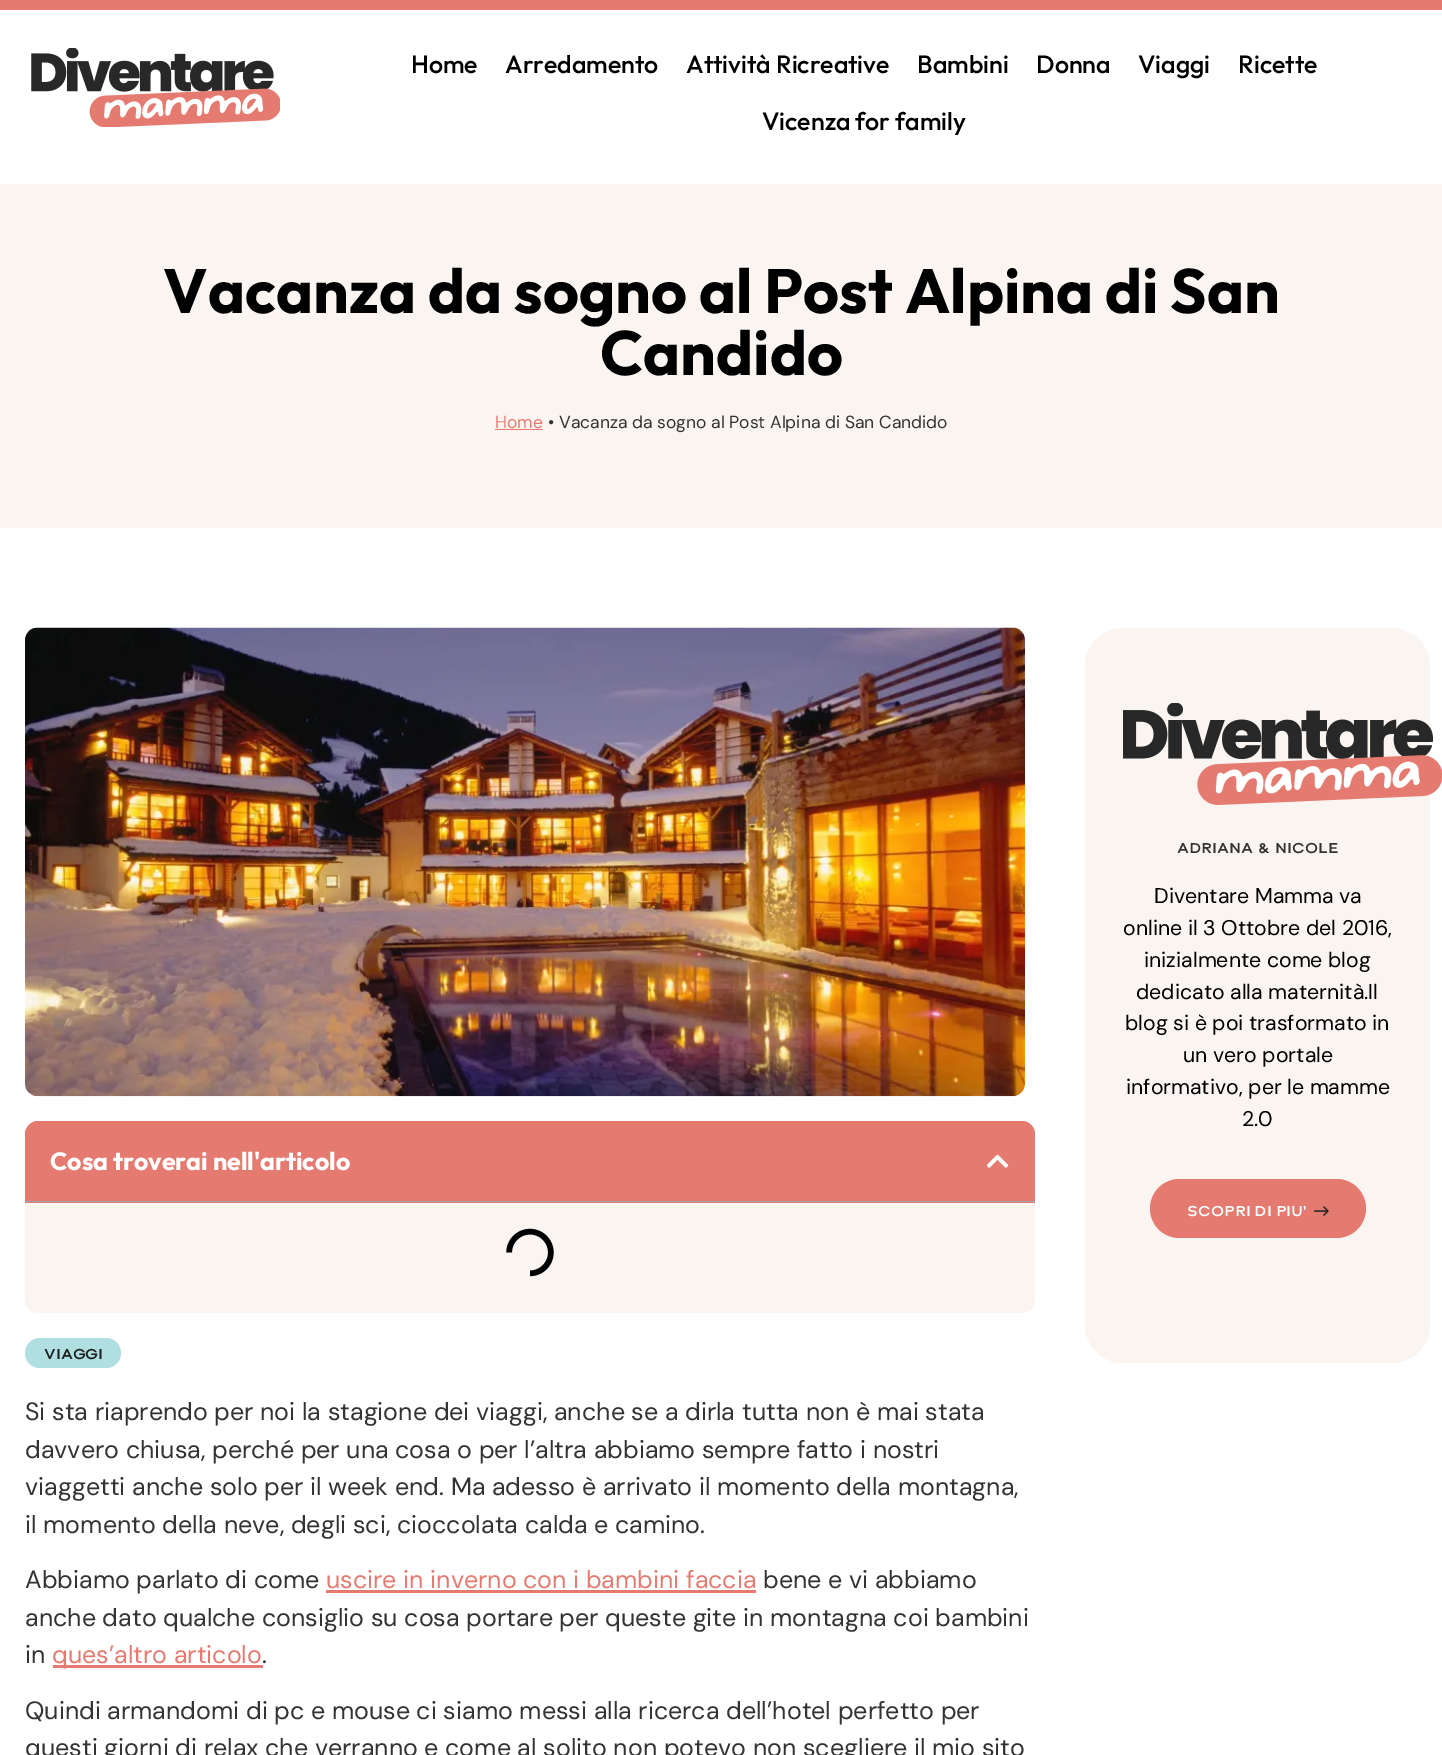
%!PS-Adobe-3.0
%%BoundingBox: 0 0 1442 1755
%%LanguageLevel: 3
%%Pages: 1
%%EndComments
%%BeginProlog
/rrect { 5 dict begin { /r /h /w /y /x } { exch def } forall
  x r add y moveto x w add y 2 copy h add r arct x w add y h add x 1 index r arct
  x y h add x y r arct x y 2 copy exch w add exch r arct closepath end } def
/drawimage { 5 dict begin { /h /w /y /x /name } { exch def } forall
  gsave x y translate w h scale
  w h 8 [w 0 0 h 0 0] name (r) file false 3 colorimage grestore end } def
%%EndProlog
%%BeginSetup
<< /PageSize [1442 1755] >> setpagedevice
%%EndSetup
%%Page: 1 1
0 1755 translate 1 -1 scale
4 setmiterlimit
1 setgray
0 0 1442 1755 rectfill
0.898 0.482 0.439 setrgbcolor
0 0 1442 10 rectfill
(images/1.raw) 31 48 249 79 drawimage
0.984 0.961 0.949 setrgbcolor
0 184 1442 344 rectfill
0.898 0.482 0.439 setrgbcolor
495 429 48 1 rectfill
0.984 0.961 0.949 setrgbcolor
1085 628 345 735 38 rrect fill
(images/2.raw) 1123 703 319 102 drawimage
0.898 0.482 0.439 setrgbcolor
1150 1179 216 59 29.5 rrect fill
(images/3.raw) 1314 1206 15 10 drawimage
(images/4.raw) 25 627 1000 470 drawimage
0.984 0.961 0.949 setrgbcolor
25 1121 1010 192 13 rrect fill
0.898 0.482 0.439 setrgbcolor
newpath 38 1121 moveto 1022 1121 lineto 1029 1121 1035 1127 1035 1134 curveto 1035 1203 lineto 25 1203 lineto 25 1134 lineto 25 1127 31 1121 38 1121 curveto closepath fill
0.616 0.647 0.682 setrgbcolor
25 1201 1010 1 rectfill
(images/5.raw) 986 1154 23 14 drawimage
(images/6.raw) 506 1228 48 49 drawimage
0.69 0.875 0.886 setrgbcolor
25 1338 96 30 15 rrect fill
0.898 0.482 0.439 setrgbcolor
326 1590 430 3 rectfill
53 1665 210 3 rectfill
/Outfit-Medium [25 0 0 -25 0 0] selectfont
0 setgray
411 73 moveto (Home) show
505 73 moveto (Arredamento) show
686 73 moveto (Attività Ricreative) show
917 73 moveto (Bambini) show
1036 73 moveto (Donna) show
1138 73 moveto (Viaggi) show
1238 73 moveto (Ricette) show
762 130 moveto (Vicenza for family) show
/Outfit-Bold [62.5 0 0 -62.5 0 0] selectfont
163 313 moveto (Vacanza da sogno al Post Alpina di San) show
600 375 moveto (Candido) show
/DMSans-Regular [17.5 0 0 -17.5 0 0] selectfont
0.898 0.482 0.439 setrgbcolor
495 428 moveto (Home) show
0.2 setgray
548 428 moveto (• Vacanza da sogno al Post Alpina di San Candido) show
/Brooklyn-Bold [15 0 0 -15 0 0] selectfont
1177 853 moveto 1 0 32 (ADRIANA & NICOLE) widthshow
/DMSans-Regular [21.25 0 0 -21.25 0 0] selectfont
0 setgray
1154 903 moveto (Diventare Mamma va) show
1123 935 moveto (online il 3 Ottobre del 2016,) show
1144 967 moveto (inizialmente come blog) show
1136 999 moveto (dedicato alla maternità.Il) show
1125 1030 moveto (blog si è poi trasformato in) show
1183 1062 moveto (un vero portale) show
1126 1094 moveto (informativo, per le mamme) show
1242 1126 moveto (2.0) show
/Brooklyn-Bold [15 0 0 -15 0 0] selectfont
1 setgray
1187 1216 moveto (SCOPRI DI PIU') show
/Outfit-Bold [25 0 0 -25 0 0] selectfont
50 1170 moveto (Cosa troverai nell'articolo) show
/Brooklyn-Bold [15 0 0 -15 0 0] selectfont
0.122 setgray
44 1359 moveto (VIAGGI) show
/DMSans-Regular [25 0 0 -25 0 0] selectfont
0.2 setgray
25 1420 moveto (Si sta riaprendo per noi la stagione dei viaggi, anche se a dirla tutta non è mai stata) show
25 1458 moveto (davvero chiusa, perché per una cosa o per l’altra abbiamo sempre fatto i nostri) show
25 1495 moveto (viaggetti anche solo per il week end. Ma adesso è arrivato il momento della montagna,) show
25 1533 moveto (il momento della neve, degli sci, cioccolata calda e camino.) show
25 1588 moveto (Abbiamo parlato di come) show
0.898 0.482 0.439 setrgbcolor
326 1588 moveto (uscire in inverno con i bambini faccia) show
0.2 setgray
763 1588 moveto (bene e vi abbiamo) show
25 1626 moveto (anche dato qualche consiglio su cosa portare per queste gite in montagna coi bambini) show
25 1663 moveto (in) show
0.898 0.482 0.439 setrgbcolor
52 1663 moveto (ques’altro articolo) show
0.2 setgray
262 1663 moveto (.) show
25 1719 moveto (Quindi armandomi di pc e mouse ci siamo messi alla ricerca dell’hotel perfetto per) show
25 1756 moveto (questi giorni di relax che verranno e come al solito non potevo non scegliere il mio sito) show
showpage
%%EOF
